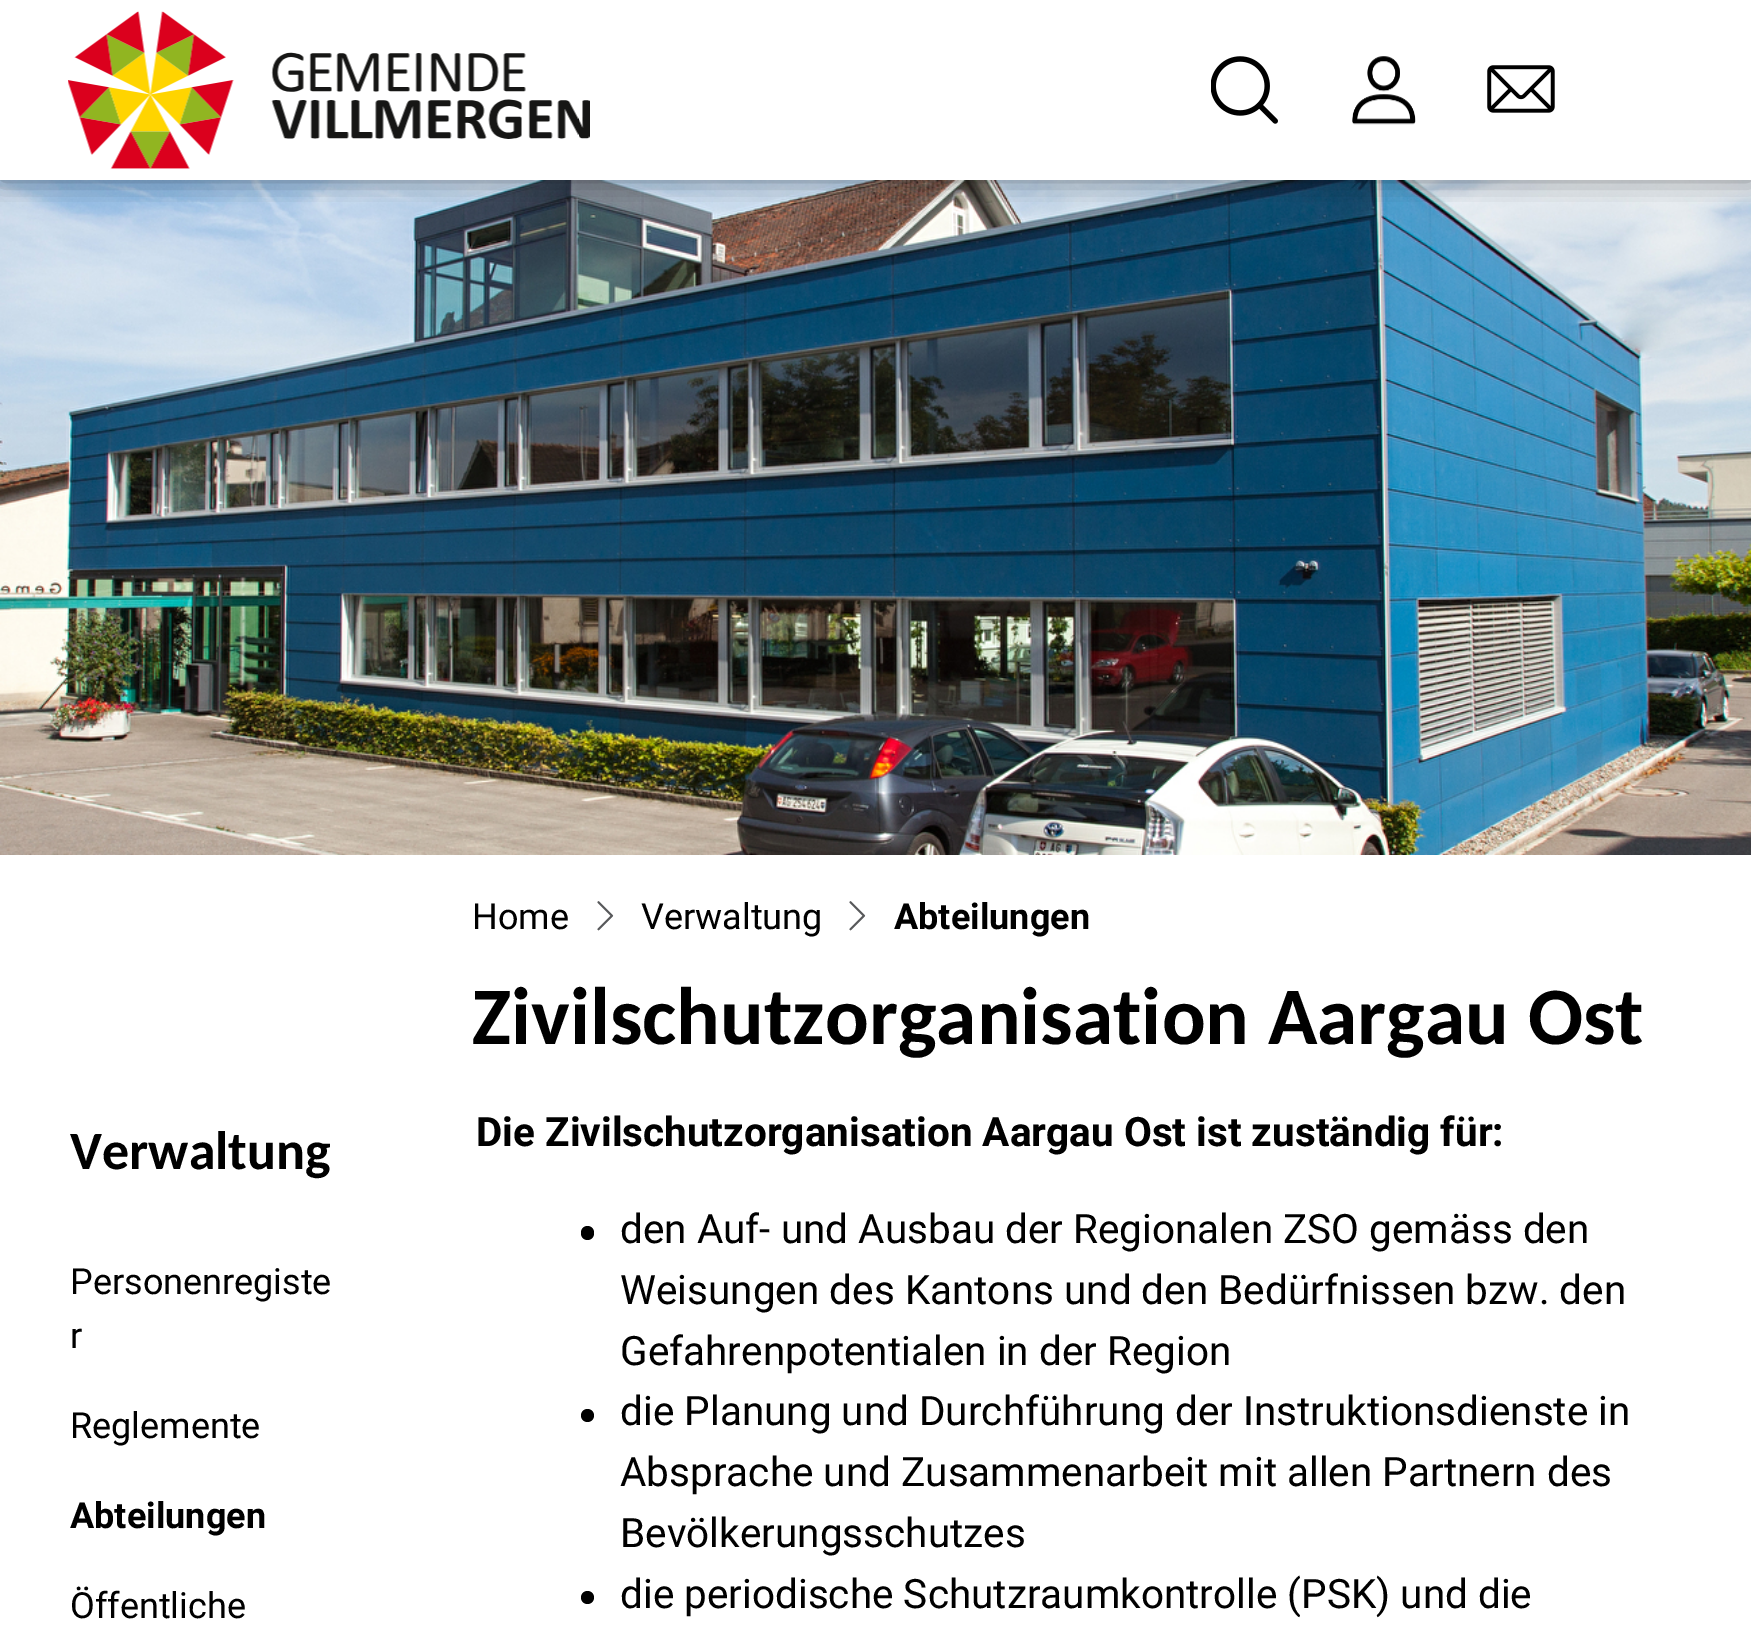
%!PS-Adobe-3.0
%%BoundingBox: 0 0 1751 1644
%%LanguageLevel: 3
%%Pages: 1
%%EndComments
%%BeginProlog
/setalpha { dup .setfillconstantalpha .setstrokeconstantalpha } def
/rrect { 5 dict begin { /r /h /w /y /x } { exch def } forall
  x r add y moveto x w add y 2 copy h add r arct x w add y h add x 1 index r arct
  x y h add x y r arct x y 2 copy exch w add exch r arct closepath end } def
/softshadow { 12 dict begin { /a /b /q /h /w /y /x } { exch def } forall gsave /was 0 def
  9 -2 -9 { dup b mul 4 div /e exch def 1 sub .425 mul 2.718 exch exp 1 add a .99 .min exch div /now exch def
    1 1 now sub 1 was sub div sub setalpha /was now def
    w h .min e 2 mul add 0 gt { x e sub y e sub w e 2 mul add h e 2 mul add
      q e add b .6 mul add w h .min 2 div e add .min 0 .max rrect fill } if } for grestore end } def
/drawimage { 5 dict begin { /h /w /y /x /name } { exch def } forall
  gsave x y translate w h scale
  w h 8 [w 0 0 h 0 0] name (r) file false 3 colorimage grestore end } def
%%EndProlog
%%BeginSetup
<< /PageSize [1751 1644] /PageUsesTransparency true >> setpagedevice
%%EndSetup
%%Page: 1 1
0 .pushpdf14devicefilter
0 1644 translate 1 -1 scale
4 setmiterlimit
1 setgray
0 0 1751 1644 rectfill
(images/5.raw) 0 180 1751 675 drawimage
gsave
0 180 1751 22 rectclip
0 setgray
0 0 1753 180 0 13.5 0.4 softshadow
grestore
(images/1.raw) 68 11 522 158 drawimage
(images/2.raw) 1211 56 67 68 drawimage
(images/3.raw) 1352 56 64 69 drawimage
(images/4.raw) 1487 65 68 48 drawimage
(images/6.raw) 597 901 17 30 drawimage
(images/6.raw) 849 901 17 30 drawimage
0 setgray
581 1226 13 14 6.5 rrect fill
newpath 587.5 1415.5 6.5 0 360 arc closepath fill
newpath 587.5 1597.5 6.5 0 360 arc closepath fill
/Roboto-Regular [36 0 0 -36 0 0] selectfont
472 929 moveto (Home) show
641 929 moveto (Verwaltung) show
/Roboto-Bold [36 0 0 -36 0 0] selectfont
894 929 moveto (Abteilungen) show
/Carlito-Bold [81.6 0 0 -81.6 0 0] selectfont
472 1044 moveto (Zivilschutzorganisation Aargau Ost) show
/Carlito-Bold [54 0 0 -54 0 0] selectfont
70 1169 moveto (Verwaltung) show
/Roboto-Regular [36 0 0 -36 0 0] selectfont
70 1294 moveto (Personenregiste) show
70 1348 moveto (r) show
70 1438 moveto (Reglemente) show
/Roboto-Bold [36 0 0 -36 0 0] selectfont
70 1528 moveto (Abteilungen) show
/Roboto-Regular [36 0 0 -36 0 0] selectfont
70 1618 moveto (Öffentliche) show
/Roboto-Bold [40.5 0 0 -40.5 0 0] selectfont
476 1146 moveto (Die Zivilschutzorganisation Aargau Ost ist zuständig für:) show
/Roboto-Regular [40.5 0 0 -40.5 0 0] selectfont
620 1243 moveto (den Auf- und Ausbau der Regionalen ZSO gemäss den) show
620 1304 moveto (Weisungen des Kantons und den Bedürfnissen bzw. den) show
620 1365 moveto (Gefahrenpotentialen in der Region) show
620 1425 moveto (die Planung und Durchführung der Instruktionsdienste in) show
620 1486 moveto (Absprache und Zusammenarbeit mit allen Partnern des) show
620 1547 moveto (Bevölkerungsschutzes) show
620 1608 moveto (die periodische Schutzraumkontrolle \(PSK\) und die) show
.poppdf14devicefilter showpage
%%EOF
